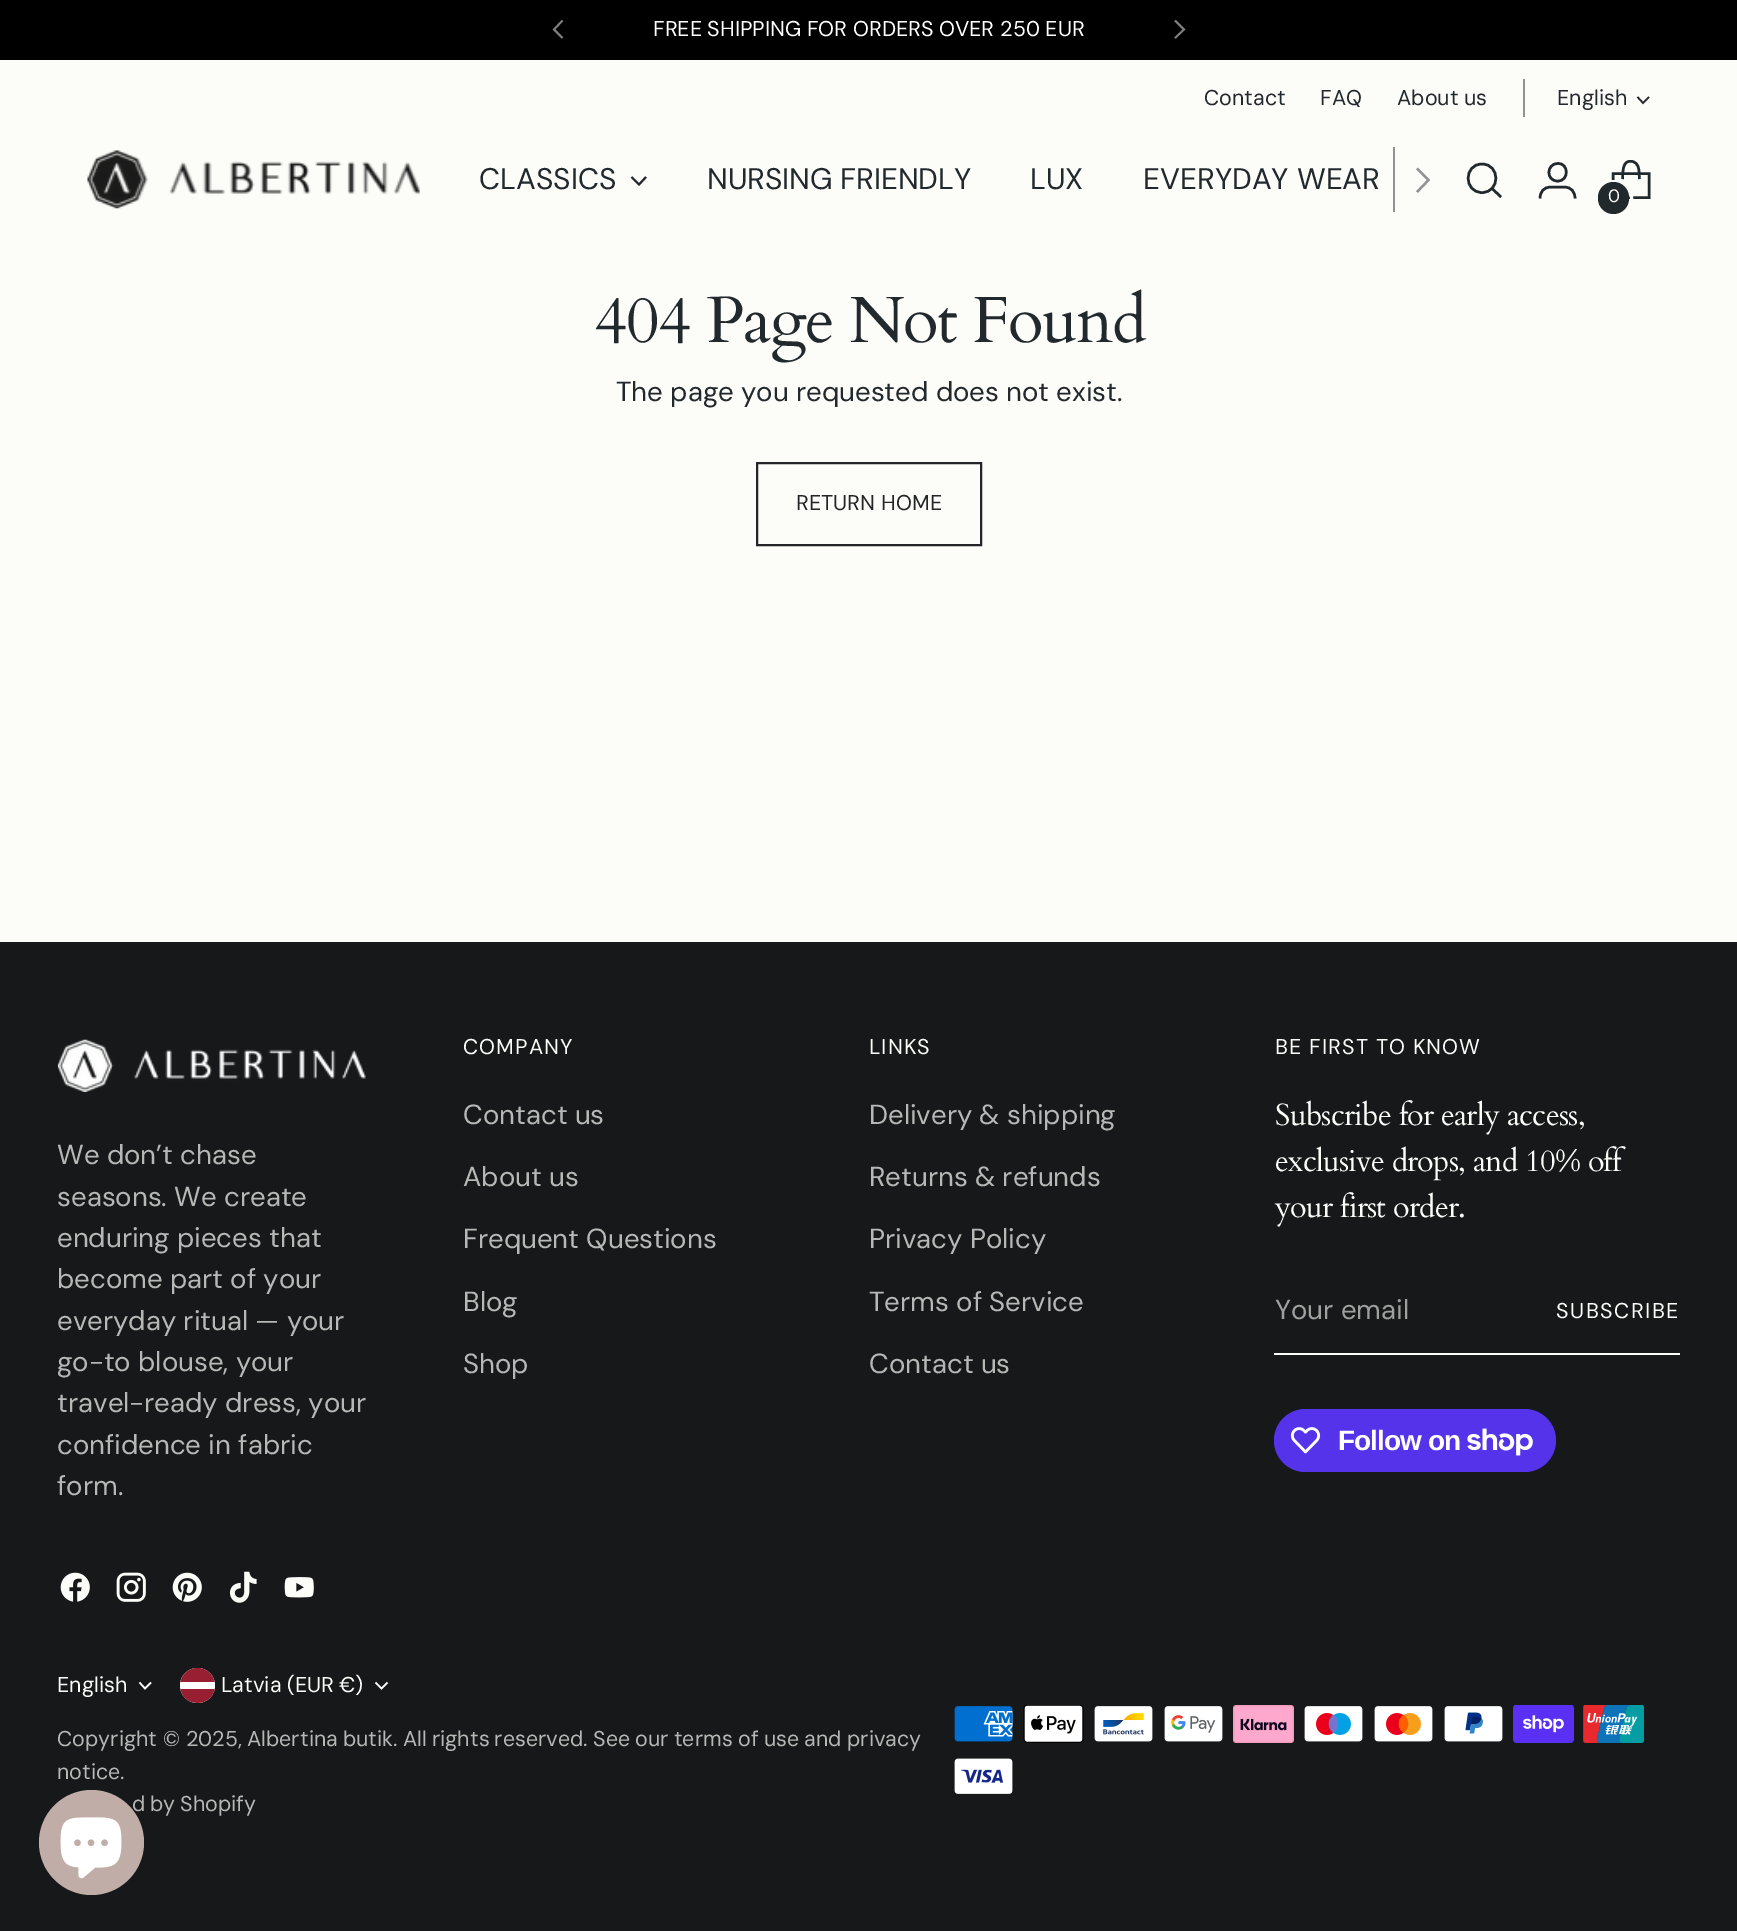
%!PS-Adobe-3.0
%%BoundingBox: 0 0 1737 1931
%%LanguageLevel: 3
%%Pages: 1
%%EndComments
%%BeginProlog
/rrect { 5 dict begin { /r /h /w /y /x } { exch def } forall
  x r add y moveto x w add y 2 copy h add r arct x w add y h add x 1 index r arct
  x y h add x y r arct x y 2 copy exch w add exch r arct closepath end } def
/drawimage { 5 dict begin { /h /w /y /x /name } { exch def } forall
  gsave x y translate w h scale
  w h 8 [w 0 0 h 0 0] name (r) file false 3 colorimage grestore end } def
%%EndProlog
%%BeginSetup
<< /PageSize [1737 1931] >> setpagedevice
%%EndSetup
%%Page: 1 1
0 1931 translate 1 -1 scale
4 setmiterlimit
0.988 0.988 0.976 setrgbcolor
0 0 1737 1931 rectfill
0 setgray
0 0 1737 60 rectfill
0.502 setgray
1.8 setlinewidth
newpath 562.5 20.5 moveto 554 29.5 lineto 562.5 38 lineto stroke
newpath 1175 38 moveto 1184 29.5 lineto 1175 20.5 lineto stroke
0.561 0.576 0.576 setrgbcolor
1523 79 2 38 rectfill
0.133 0.161 0.176 setrgbcolor
1.6 setlinewidth
newpath 1637.5 97 moveto 1643 103 lineto 1649 97 lineto stroke
(images/1.raw) 87 150 333 59 drawimage
2 setlinewidth
newpath 631.5 177 moveto 639 184.5 lineto 646 177 lineto stroke
0.561 0.576 0.576 setrgbcolor
1393 147 2 65 rectfill
2.3 setlinewidth
newpath 1417 192 moveto 1428.5 180 lineto 1417 168.5 lineto stroke
0.133 0.161 0.176 setrgbcolor
2.5 setlinewidth
1 setlinecap
newpath 1482 192.5 moveto 1500.5 192.5 1500.5 164 1482 164 curveto 1463.5 164 1463.5 192.5 1482 192.5 curveto closepath stroke
0 setlinecap
newpath 1492 188.5 moveto 1501 197 lineto stroke
newpath 1557.5 181 moveto 1569.5 181.5 1569 162.5 1557.5 163.5 curveto 1546 164 1546 181 1557.5 181 curveto closepath 1540 198.5 moveto 1540 192 1543.5 187 1551 187 curveto 1564 187 lineto 1571.5 187 1575 192 1575 198.5 curveto stroke
2 setlinejoin
newpath 1639.5 179 moveto 1639 175 1639.5 170.5 1638 166.5 curveto 1637 164 1635.5 162 1632.5 161.5 curveto 1622 159 1623 172.5 1622.5 179 curveto stroke
0 setlinejoin
newpath 1649 197.5 moveto 1649 173.5 lineto 1613 173.5 lineto 1613 197.5 lineto closepath stroke
0.988 0.988 0.976 setrgbcolor
3 setlinewidth
newpath 1614.5 198.5 17 0 360 arc closepath stroke
0.133 0.161 0.176 setrgbcolor
1598 182 31 32 15.5 rrect fill
0.141 0.145 0.149 setrgbcolor
2 setlinewidth
757 463 224 82 rectstroke
0.09 0.094 0.098 setrgbcolor
0 942 1737 989 rectfill
(images/2.raw) 57 1039 309 53 drawimage
(images/3.raw) 60 1572 30 30 drawimage
(images/4.raw) 116 1572 30 30 drawimage
(images/5.raw) 172 1572 30 30 drawimage
(images/6.raw) 229 1571 28 32 drawimage
(images/7.raw) 284 1577 30 21 drawimage
0.988 0.988 0.976 setrgbcolor
1274 1353 406 2 rectfill
0.329 0.2 0.922 setrgbcolor
1274 1409 282 63 31.5 rrect fill
(images/8.raw) 1290 1427 31 27 drawimage
(images/9.raw) 1467 1428 66 28 drawimage
0.988 0.988 0.976 setrgbcolor
1.6 setlinewidth
newpath 139.5 1682.5 moveto 145 1688.5 lineto 151 1682.5 lineto stroke
1 setgray
newpath 197.5 1685.5 17.5 0 360 arc closepath fill
0.596 0.118 0.196 setrgbcolor
newpath 214.5 1689 moveto 211 1707.5 184 1707.5 180.5 1689 curveto closepath 197.5 1668 moveto 206 1668 213 1674 214.5 1682 curveto 180.5 1682 lineto 182 1674 189 1668 197.5 1668 curveto closepath eofill
0.988 0.988 0.976 setrgbcolor
newpath 375.5 1682.5 moveto 381.5 1688.5 lineto 387.5 1682.5 lineto stroke
(images/10.raw) 954 1706 59 36 drawimage
(images/11.raw) 1023 1705 61 38 drawimage
(images/12.raw) 1094 1706 59 36 drawimage
(images/13.raw) 1164 1706 59 36 drawimage
(images/14.raw) 1233 1705 61 38 drawimage
(images/15.raw) 1304 1706 59 36 drawimage
(images/16.raw) 1374 1706 59 36 drawimage
(images/17.raw) 1444 1706 59 36 drawimage
(images/18.raw) 1513 1705 61 38 drawimage
(images/19.raw) 1583 1705 61 38 drawimage
(images/20.raw) 954 1758 59 36 drawimage
/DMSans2-Regular [21.4 0 0 -21.4 0 0] selectfont
1 setgray
653 36 moveto (FREE SHIPPING FOR ORDERS OVER 250 EUR) show
0.133 0.161 0.176 setrgbcolor
1204 105 moveto (Contact) show
1320 105 moveto (FAQ) show
1397 105 moveto (About us) show
1557 105 moveto (English) show
/DMSans2-Regular [29.75 0 0 -29.75 0 0] selectfont
479 189 moveto (CLASSICS) show
707 189 moveto -1 0 32 (NURSING FRIENDLY) widthshow
1030 189 moveto (LUX) show
1143 189 moveto (EVERYDAY WEAR) show
/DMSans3-Regular [18 0 0 -18 0 0] selectfont
0.988 0.988 0.976 setrgbcolor
1608 202 moveto (0) show
/Cardo-Regular [65.5 0 0 -65.5 0 0] selectfont
0.133 0.161 0.176 setrgbcolor
594 342 moveto -1.6 0 (404 Page Not Found) ashow
/DMSans-Regular [27.6 0 0 -27.6 0 0] selectfont
616 401 moveto (The page you requested does not exist.) show
/DMSans2-Regular [21.4 0 0 -21.4 0 0] selectfont
0.141 0.145 0.149 setrgbcolor
796 510 moveto 0.1 0 (RETURN HOME) ashow
/DMSans-Regular [27.6 0 0 -27.6 0 0] selectfont
0.718 0.722 0.714 setrgbcolor
57 1164 moveto (We don’t chase) show
57 1206 moveto (seasons. We create) show
57 1247 moveto (enduring pieces that) show
57 1288 moveto (become part of your) show
57 1330 moveto (everyday ritual — your) show
57 1371 moveto (go-to blouse, your) show
57 1412 moveto (travel-ready dress, your) show
57 1454 moveto (confidence in fabric) show
57 1495 moveto (form.) show
/DMSans2-Regular [21.4 0 0 -21.4 0 0] selectfont
0.988 0.988 0.976 setrgbcolor
463 1054 moveto 1.1 0 (COMPANY) ashow
/DMSans-Regular [27.6 0 0 -27.6 0 0] selectfont
0.718 0.722 0.714 setrgbcolor
463 1124 moveto (Contact us) show
463 1186 moveto (About us) show
463 1248 moveto (Frequent Questions) show
463 1311 moveto (Blog) show
463 1373 moveto (Shop) show
/DMSans2-Regular [21.4 0 0 -21.4 0 0] selectfont
0.988 0.988 0.976 setrgbcolor
869 1054 moveto 1.1 0 (LINKS) ashow
/DMSans-Regular [27.6 0 0 -27.6 0 0] selectfont
0.718 0.722 0.714 setrgbcolor
869 1124 moveto (Delivery & shipping) show
869 1186 moveto (Returns & refunds) show
869 1248 moveto (Privacy Policy) show
869 1311 moveto (Terms of Service) show
869 1373 moveto (Contact us) show
/DMSans2-Regular [21.4 0 0 -21.4 0 0] selectfont
0.988 0.988 0.976 setrgbcolor
1275 1054 moveto 1.1 0 (BE FIRST TO KNOW) ashow
/Cardo-Regular [30.6 0 0 -30.6 0 0] selectfont
1275 1125 moveto -0.75 0 (Subscribe for early access,) ashow
1275 1171 moveto -0.75 0 (exclusive drops, and 10% off) ashow
1275 1217 moveto -0.75 0 (your first order.) ashow
/DMSans-Regular [27.6 0 0 -27.6 0 0] selectfont
0.627 0.631 0.624 setrgbcolor
1275 1319 moveto (Your email) show
/DMSans2-Regular [21.4 0 0 -21.4 0 0] selectfont
0.988 0.988 0.976 setrgbcolor
1556 1318 moveto 1.5 0 (SUBSCRIBE) ashow
/LiberationSans-Bold [28 0 0 -28 0 0] selectfont
1 setgray
1338 1450 moveto -0.9 0 (Follow on) ashow
/DMSans2-Regular [21.4 0 0 -21.4 0 0] selectfont
0.988 0.988 0.976 setrgbcolor
57 1692 moveto (English) show
221 1692 moveto (Latvia \(EUR) show
339 1692 moveto (€\)) show
0.718 0.722 0.714 setrgbcolor
57 1746 moveto (Copyright © 2025,) show
247 1746 moveto -1 0 32 (Albertina butik) widthshow
393 1746 moveto (.) show
403 1746 moveto -1 0 32 (All rights reserved.) widthshow
593 1746 moveto -0.5 0 32 (See our terms of use and privacy) widthshow
57 1779 moveto (notice.) show
132 1811 moveto -1 0 32 (d by Shopify) widthshow
0.753 0.678 0.655 setrgbcolor
newpath 91.5 1842.5 52.5 0 360 arc closepath fill
(images/21.raw) 60 1817 62 62 drawimage
showpage
%%EOF
